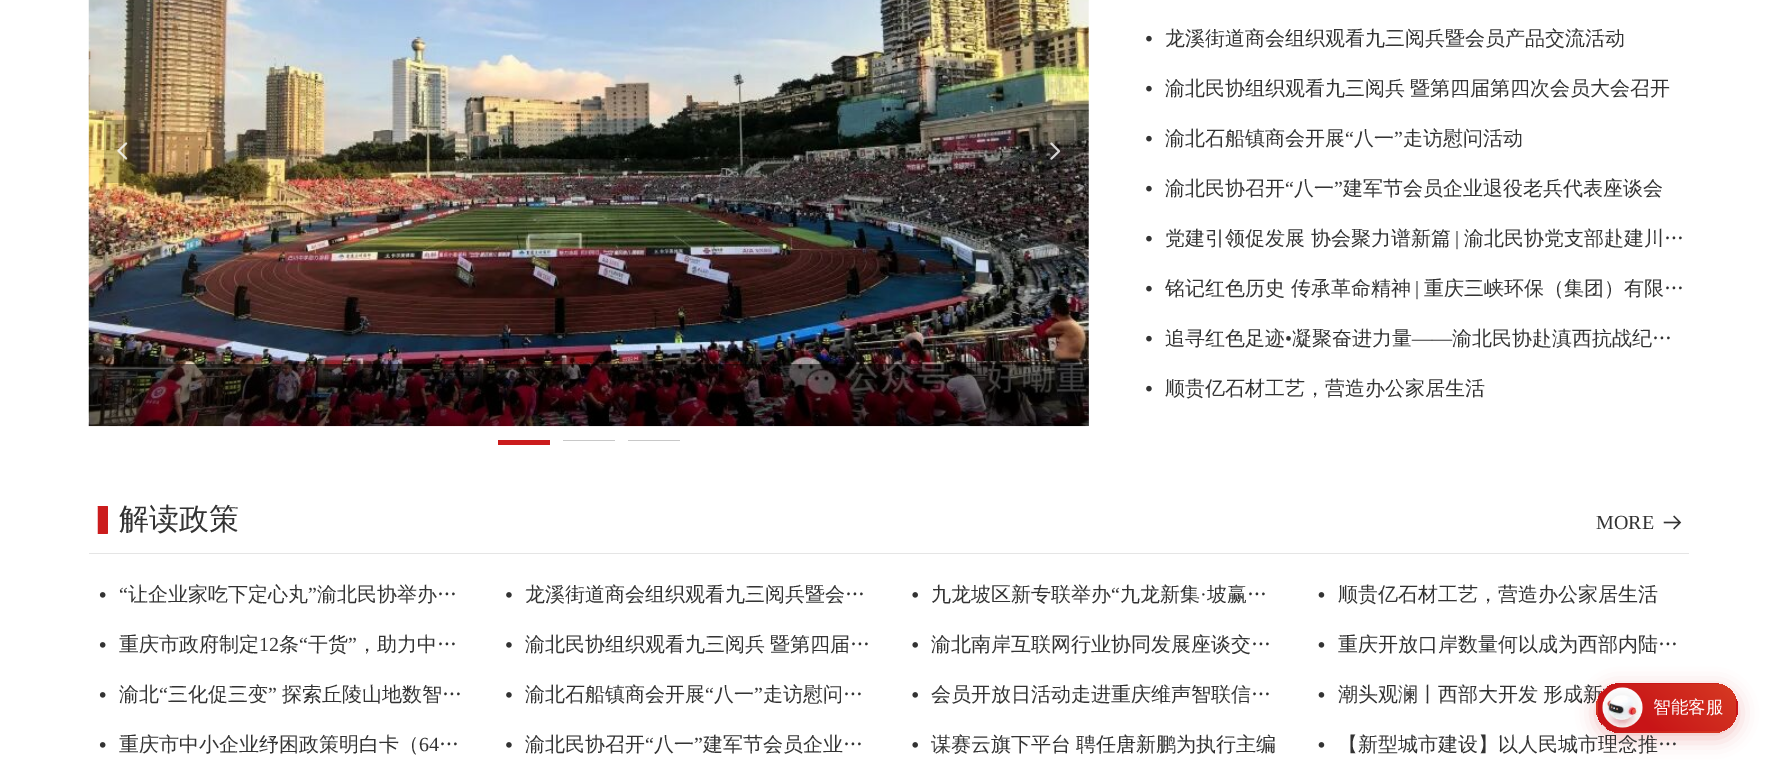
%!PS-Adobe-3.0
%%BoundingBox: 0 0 1777 772
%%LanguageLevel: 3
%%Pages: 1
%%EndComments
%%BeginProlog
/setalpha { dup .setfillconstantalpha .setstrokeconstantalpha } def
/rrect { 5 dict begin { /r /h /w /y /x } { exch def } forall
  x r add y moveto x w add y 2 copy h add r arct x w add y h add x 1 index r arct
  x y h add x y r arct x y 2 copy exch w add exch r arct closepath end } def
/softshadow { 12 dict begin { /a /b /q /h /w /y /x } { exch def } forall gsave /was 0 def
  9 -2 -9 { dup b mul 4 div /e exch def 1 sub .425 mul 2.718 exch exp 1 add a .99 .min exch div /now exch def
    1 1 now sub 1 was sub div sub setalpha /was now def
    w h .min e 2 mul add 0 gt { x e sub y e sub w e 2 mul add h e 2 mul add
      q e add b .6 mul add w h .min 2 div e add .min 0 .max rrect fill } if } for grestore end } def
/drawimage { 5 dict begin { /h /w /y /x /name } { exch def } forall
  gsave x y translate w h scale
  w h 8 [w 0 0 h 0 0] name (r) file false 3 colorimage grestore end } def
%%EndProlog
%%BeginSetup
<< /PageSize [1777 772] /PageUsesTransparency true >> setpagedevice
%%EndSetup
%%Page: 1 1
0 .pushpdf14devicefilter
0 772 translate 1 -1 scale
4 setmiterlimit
1 setgray
0 0 1777 772 rectfill
(images/1.raw) 88 0 1001 427 drawimage
0.2 setalpha
0 setgray
104 120 37 63 rectfill
1 setalpha
(images/2.raw) 117 142 11 18 drawimage
0.2 setalpha
1036 120 38 63 rectfill
1 setalpha
(images/3.raw) 1050 142 11 18 drawimage
0.5 setalpha
89 364 1000 62 rectfill
1 setalpha
0.796 0.11 0.114 setrgbcolor
498 440 52 5 rectfill
0.784 setgray
563 440 52 1 rectfill
628 440 52 1 rectfill
(images/4.raw) 1146 35 6 7 drawimage
(images/4.raw) 1146 85 6 7 drawimage
(images/4.raw) 1146 135 6 7 drawimage
(images/4.raw) 1146 185 6 7 drawimage
(images/4.raw) 1146 235 6 7 drawimage
(images/4.raw) 1146 285 6 7 drawimage
(images/4.raw) 1146 335 6 7 drawimage
(images/4.raw) 1146 385 6 7 drawimage
0.898 setgray
89 553 1600 1 rectfill
(images/5.raw) 1663 515 19 15 drawimage
(images/6.raw) 99 592 7 6 drawimage
(images/6.raw) 99 642 7 6 drawimage
(images/6.raw) 99 692 7 6 drawimage
(images/6.raw) 99 742 7 6 drawimage
(images/7.raw) 506 592 6 6 drawimage
(images/7.raw) 506 642 6 6 drawimage
(images/7.raw) 506 692 6 6 drawimage
(images/7.raw) 506 742 6 6 drawimage
(images/8.raw) 912 592 6 6 drawimage
(images/8.raw) 912 642 6 6 drawimage
(images/8.raw) 912 692 6 6 drawimage
(images/8.raw) 912 742 6 6 drawimage
(images/9.raw) 1318 592 7 6 drawimage
(images/9.raw) 1318 642 7 6 drawimage
(images/9.raw) 1318 692 7 6 drawimage
(images/9.raw) 1318 742 7 6 drawimage
0.784 0.078 0.09 setrgbcolor
1596 688 142 50 25 9.5 0.26 softshadow
/WenQuanYiZenHei-Medium [20 0 0 -20 0 0] selectfont
0.2 setgray
1165 45 moveto (龙溪街道商会组织观看九三阅兵暨会员产品交流活动) show
1165 95 moveto -1 0 32 (渝北民协组织观看九三阅兵 暨第四届第四次会员大会召开) widthshow
1165 145 moveto (渝北石船镇商会开展) show
/LiberationSerif-Regular [20 0 0 -20 0 0] selectfont
1345 145 moveto (“) show
/WenQuanYiZenHei-Medium [20 0 0 -20 0 0] selectfont
1354 145 moveto (八一) show
/LiberationSerif-Regular [20 0 0 -20 0 0] selectfont
1394 145 moveto (”) show
/WenQuanYiZenHei-Medium [20 0 0 -20 0 0] selectfont
1403 145 moveto (走访慰问活动) show
1165 195 moveto (渝北民协召开) show
/LiberationSerif-Regular [20 0 0 -20 0 0] selectfont
1285 195 moveto (“) show
/WenQuanYiZenHei-Medium [20 0 0 -20 0 0] selectfont
1294 195 moveto (八一) show
/LiberationSerif-Regular [20 0 0 -20 0 0] selectfont
1334 195 moveto (”) show
/WenQuanYiZenHei-Medium [20 0 0 -20 0 0] selectfont
1343 195 moveto (建军节会员企业退役老兵代表座谈会) show
1165 245 moveto (党建引领促发展 协会聚力谱新篇) show
/LiberationSerif-Regular [20 0 0 -20 0 0] selectfont
1455 245 moveto (|) show
/WenQuanYiZenHei-Medium [20 0 0 -20 0 0] selectfont
1464 245 moveto (渝北民协党支部赴建川…) show
1165 295 moveto (铭记红色历史 传承革命精神) show
/LiberationSerif-Regular [20 0 0 -20 0 0] selectfont
1415 295 moveto (|) show
/WenQuanYiZenHei-Medium [20 0 0 -20 0 0] selectfont
1424 295 moveto (重庆三峡环保（集团）有限…) show
1165 345 moveto (追寻红色足迹) show
/LiberationSerif-Regular [20 0 0 -20 0 0] selectfont
1285 345 moveto (•) show
/WenQuanYiZenHei-Medium [20 0 0 -20 0 0] selectfont
1292 345 moveto (凝聚奋进力量) show
/LiberationSerif-Regular [20 0 0 -20 0 0] selectfont
1412 345 moveto (——) show
/WenQuanYiZenHei-Medium [20 0 0 -20 0 0] selectfont
1452 345 moveto (渝北民协赴滇西抗战纪…) show
1165 395 moveto (顺贵亿石材工艺，营造办公家居生活) show
/WenQuanYiZenHei-Medium [30 0 0 -30 0 0] selectfont
0.796 0.11 0.114 setrgbcolor
89 529 moveto (▍) show
0.2 setgray
119 529 moveto (解读政策) show
/LiberationSerif-Regular [20 0 0 -20 0 0] selectfont
1596 529 moveto (MORE) show
119 601 moveto (“) show
/WenQuanYiZenHei-Medium [20 0 0 -20 0 0] selectfont
128 601 moveto (让企业家吃下定心丸) show
/LiberationSerif-Regular [20 0 0 -20 0 0] selectfont
308 601 moveto (”) show
/WenQuanYiZenHei-Medium [20 0 0 -20 0 0] selectfont
317 601 moveto (渝北民协举办…) show
119 651 moveto (重庆市政府制定) show
/LiberationSerif-Regular [20 0 0 -20 0 0] selectfont
259 651 moveto (12) show
/WenQuanYiZenHei-Medium [20 0 0 -20 0 0] selectfont
279 651 moveto (条) show
/LiberationSerif-Regular [20 0 0 -20 0 0] selectfont
299 651 moveto (“) show
/WenQuanYiZenHei-Medium [20 0 0 -20 0 0] selectfont
308 651 moveto (干货) show
/LiberationSerif-Regular [20 0 0 -20 0 0] selectfont
348 651 moveto (”) show
/WenQuanYiZenHei-Medium [20 0 0 -20 0 0] selectfont
357 651 moveto (，助力中…) show
119 701 moveto (渝北) show
/LiberationSerif-Regular [20 0 0 -20 0 0] selectfont
159 701 moveto (“) show
/WenQuanYiZenHei-Medium [20 0 0 -20 0 0] selectfont
168 701 moveto (三化促三变) show
/LiberationSerif-Regular [20 0 0 -20 0 0] selectfont
268 701 moveto (”) show
/WenQuanYiZenHei-Medium [20 0 0 -20 0 0] selectfont
282 701 moveto (探索丘陵山地数智…) show
119 751 moveto (重庆市中小企业纾困政策明白卡（) show
/LiberationSerif-Regular [20 0 0 -20 0 0] selectfont
419 751 moveto (64) show
/WenQuanYiZenHei-Medium [20 0 0 -20 0 0] selectfont
439 751 moveto (…) show
525 601 moveto (龙溪街道商会组织观看九三阅兵暨会…) show
525 651 moveto -1 0 32 (渝北民协组织观看九三阅兵 暨第四届…) widthshow
525 701 moveto (渝北石船镇商会开展) show
/LiberationSerif-Regular [20 0 0 -20 0 0] selectfont
705 701 moveto (“) show
/WenQuanYiZenHei-Medium [20 0 0 -20 0 0] selectfont
714 701 moveto (八一) show
/LiberationSerif-Regular [20 0 0 -20 0 0] selectfont
754 701 moveto (”) show
/WenQuanYiZenHei-Medium [20 0 0 -20 0 0] selectfont
763 701 moveto (走访慰问…) show
525 751 moveto (渝北民协召开) show
/LiberationSerif-Regular [20 0 0 -20 0 0] selectfont
645 751 moveto (“) show
/WenQuanYiZenHei-Medium [20 0 0 -20 0 0] selectfont
654 751 moveto (八一) show
/LiberationSerif-Regular [20 0 0 -20 0 0] selectfont
694 751 moveto (”) show
/WenQuanYiZenHei-Medium [20 0 0 -20 0 0] selectfont
703 751 moveto (建军节会员企业…) show
931 601 moveto (九龙坡区新专联举办) show
/LiberationSerif-Regular [20 0 0 -20 0 0] selectfont
1111 601 moveto (“) show
/WenQuanYiZenHei-Medium [20 0 0 -20 0 0] selectfont
1120 601 moveto (九龙新集) show
1207 601 moveto (坡赢…) show
/LiberationSerif-Regular [20 0 0 -20 0 0] selectfont
1200 601 moveto (·) show
/WenQuanYiZenHei-Medium [20 0 0 -20 0 0] selectfont
931 651 moveto (渝北南岸互联网行业协同发展座谈交…) show
931 701 moveto (会员开放日活动走进重庆维声智联信…) show
931 751 moveto -1 0 32 (谋赛云旗下平台 聘任唐新鹏为执行主编) widthshow
1338 601 moveto (顺贵亿石材工艺，营造办公家居生活) show
1338 651 moveto (重庆开放口岸数量何以成为西部内陆…) show
1338 701 moveto -1 0 32 (潮头观澜丨西部大开发 形成新) widthshow
1338 751 moveto (【新型城市建设】以人民城市理念推…) show
1 setgray
1596 683 142 50 25 rrect fill
gsave
1596 683 142 50 25 rrect clip newpath
1596 683 142 50 25 rrect clip newpath
gsave newpath 1615 683 moveto 1719 683 lineto 1719 684 lineto 1615 684 lineto closepath clip newpath
<< /ShadingType 2 /ColorSpace /DeviceRGB /Coords [1710 612 1624 708] /Extend [true true] /Function << /FunctionType 3 /Domain [0 1] /Functions [<< /FunctionType 2 /Domain [0 1] /C0 [0.839 0.231 0.137] /C1 [0.839 0.231 0.137] /N 1 >> << /FunctionType 2 /Domain [0 1] /C0 [0.839 0.231 0.137] /C1 [0.784 0.078 0.09] /N 1 >> << /FunctionType 2 /Domain [0 1] /C0 [0.784 0.078 0.09] /C1 [0.784 0.078 0.09] /N 1 >>] /Bounds [0.01 0.71] /Encode [0 1 0 1 0 1] >> >> shfill grestore
gsave newpath 1596 699 moveto 1598 699 lineto 1598 717 lineto 1596 717 lineto closepath clip newpath
<< /ShadingType 2 /ColorSpace /DeviceRGB /Coords [1571 660 1485 755] /Extend [true true] /Function << /FunctionType 3 /Domain [0 1] /Functions [<< /FunctionType 2 /Domain [0 1] /C0 [0.839 0.231 0.137] /C1 [0.839 0.231 0.137] /N 1 >> << /FunctionType 2 /Domain [0 1] /C0 [0.839 0.231 0.137] /C1 [0.784 0.078 0.09] /N 1 >> << /FunctionType 2 /Domain [0 1] /C0 [0.784 0.078 0.09] /C1 [0.784 0.078 0.09] /N 1 >>] /Bounds [0.01 0.71] /Encode [0 1 0 1 0 1] >> >> shfill grestore
gsave newpath 1598 684 moveto 1736 684 lineto 1736 731 lineto 1598 731 lineto closepath clip newpath
<< /ShadingType 2 /ColorSpace /DeviceRGB /Coords [1710 660 1624 755] /Extend [true true] /Function << /FunctionType 3 /Domain [0 1] /Functions [<< /FunctionType 2 /Domain [0 1] /C0 [0.839 0.231 0.137] /C1 [0.839 0.231 0.137] /N 1 >> << /FunctionType 2 /Domain [0 1] /C0 [0.839 0.231 0.137] /C1 [0.784 0.078 0.09] /N 1 >> << /FunctionType 2 /Domain [0 1] /C0 [0.784 0.078 0.09] /C1 [0.784 0.078 0.09] /N 1 >>] /Bounds [0.01 0.71] /Encode [0 1 0 1 0 1] >> >> shfill grestore
gsave newpath 1736 699 moveto 1738 699 lineto 1738 717 lineto 1736 717 lineto closepath clip newpath
<< /ShadingType 2 /ColorSpace /DeviceRGB /Coords [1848 660 1763 755] /Extend [true true] /Function << /FunctionType 3 /Domain [0 1] /Functions [<< /FunctionType 2 /Domain [0 1] /C0 [0.839 0.231 0.137] /C1 [0.839 0.231 0.137] /N 1 >> << /FunctionType 2 /Domain [0 1] /C0 [0.839 0.231 0.137] /C1 [0.784 0.078 0.09] /N 1 >> << /FunctionType 2 /Domain [0 1] /C0 [0.784 0.078 0.09] /C1 [0.784 0.078 0.09] /N 1 >>] /Bounds [0.01 0.71] /Encode [0 1 0 1 0 1] >> >> shfill grestore
gsave newpath 1612 731 moveto 1722 731 lineto 1722 733 lineto 1612 733 lineto closepath clip newpath
<< /ShadingType 2 /ColorSpace /DeviceRGB /Coords [1710 707 1624 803] /Extend [true true] /Function << /FunctionType 3 /Domain [0 1] /Functions [<< /FunctionType 2 /Domain [0 1] /C0 [0.839 0.231 0.137] /C1 [0.839 0.231 0.137] /N 1 >> << /FunctionType 2 /Domain [0 1] /C0 [0.839 0.231 0.137] /C1 [0.784 0.078 0.09] /N 1 >> << /FunctionType 2 /Domain [0 1] /C0 [0.784 0.078 0.09] /C1 [0.784 0.078 0.09] /N 1 >>] /Bounds [0.01 0.71] /Encode [0 1 0 1 0 1] >> >> shfill grestore
grestore
(images/10.raw) 1602 687 41 41 drawimage
/WenQuanYiZenHei-Medium [17.5 0 0 -17.5 0 0] selectfont
1653 713 moveto (智能客服) show
.poppdf14devicefilter showpage
%%EOF
